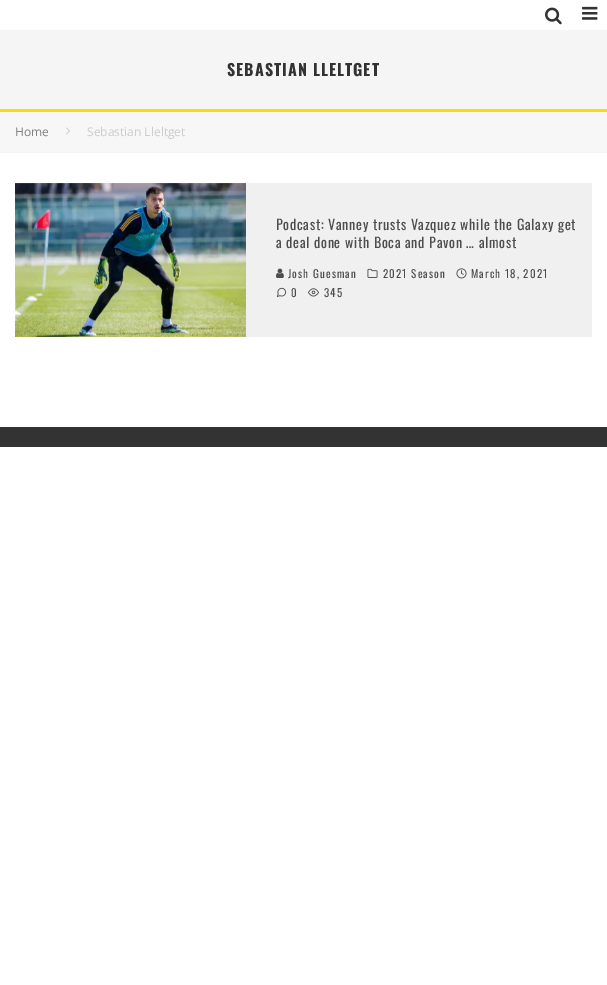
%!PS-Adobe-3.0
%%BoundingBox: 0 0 607 985
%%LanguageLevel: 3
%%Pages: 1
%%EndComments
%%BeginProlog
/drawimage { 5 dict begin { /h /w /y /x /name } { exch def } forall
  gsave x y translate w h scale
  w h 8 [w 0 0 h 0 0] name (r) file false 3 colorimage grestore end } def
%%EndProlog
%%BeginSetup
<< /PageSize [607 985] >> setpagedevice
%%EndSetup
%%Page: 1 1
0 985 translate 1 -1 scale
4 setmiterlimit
1 setgray
0 0 607 985 rectfill
(images/1.raw) 545 7 17 18 drawimage
(images/2.raw) 582 6 16 14 drawimage
0.961 setgray
0 30 607 79 rectfill
0.988 0.855 0.016 setrgbcolor
0 109 607 3 rectfill
0.969 setgray
0 112 607 40 rectfill
0.953 setgray
0 152 607 1 rectfill
(images/3.raw) 66 127 4 8 drawimage
0.941 setgray
15 183 577 154 rectfill
(images/4.raw) 15 183 231 154 drawimage
(images/5.raw) 276 268 8 10 drawimage
(images/6.raw) 367 268 11 10 drawimage
(images/7.raw) 456 268 11 11 drawimage
(images/8.raw) 276 287 11 10 drawimage
(images/9.raw) 308 288 11 9 drawimage
0.2 setgray
0 427 607 20 rectfill
/Oswald-Bold [16 0 0 -16 0 0] selectfont
227 76 moveto 1 0 (SEBASTIAN LLELTGET) ashow
/OpenSans-Regular [12 0 0 -12 0 0] selectfont
0.502 setgray
15 136 moveto (Home) show
0.8 setgray
87 136 moveto (Sebastian Lleltget) show
/Oswald-Regular [14 0 0 -14 0 0] selectfont
0.302 setgray
276 230 moveto 0.7 0 (Podcast: Vanney trusts Vazquez while the Galaxy get) ashow
276 248 moveto 0.7 0 (a deal done with Boca and Pavon … almost) ashow
/Oswald-Regular [11 0 0 -11 0 0] selectfont
288 278 moveto 1.1 0 (Josh Guesman) ashow
383 278 moveto 1.1 0 (2021 Season) ashow
471 278 moveto 1.1 0 (March 18, 2021) ashow
291 297 moveto 1.1 0 (0) ashow
324 297 moveto 1.1 0 (345) ashow
showpage
%%EOF
